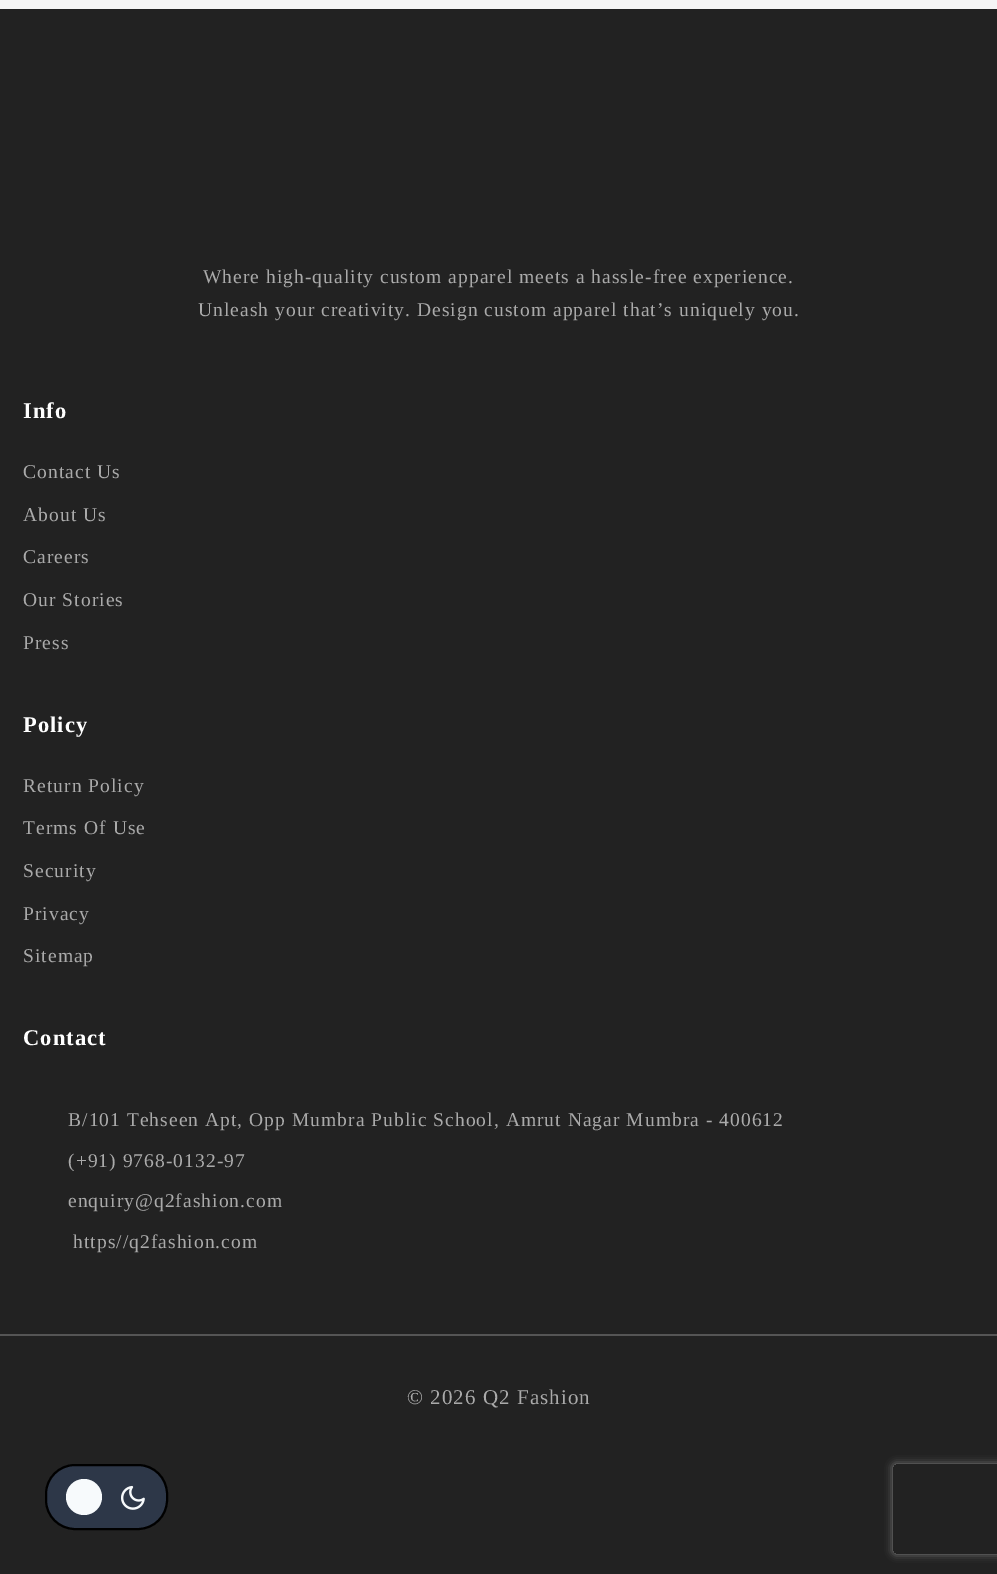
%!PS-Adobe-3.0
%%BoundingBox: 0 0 997 1574
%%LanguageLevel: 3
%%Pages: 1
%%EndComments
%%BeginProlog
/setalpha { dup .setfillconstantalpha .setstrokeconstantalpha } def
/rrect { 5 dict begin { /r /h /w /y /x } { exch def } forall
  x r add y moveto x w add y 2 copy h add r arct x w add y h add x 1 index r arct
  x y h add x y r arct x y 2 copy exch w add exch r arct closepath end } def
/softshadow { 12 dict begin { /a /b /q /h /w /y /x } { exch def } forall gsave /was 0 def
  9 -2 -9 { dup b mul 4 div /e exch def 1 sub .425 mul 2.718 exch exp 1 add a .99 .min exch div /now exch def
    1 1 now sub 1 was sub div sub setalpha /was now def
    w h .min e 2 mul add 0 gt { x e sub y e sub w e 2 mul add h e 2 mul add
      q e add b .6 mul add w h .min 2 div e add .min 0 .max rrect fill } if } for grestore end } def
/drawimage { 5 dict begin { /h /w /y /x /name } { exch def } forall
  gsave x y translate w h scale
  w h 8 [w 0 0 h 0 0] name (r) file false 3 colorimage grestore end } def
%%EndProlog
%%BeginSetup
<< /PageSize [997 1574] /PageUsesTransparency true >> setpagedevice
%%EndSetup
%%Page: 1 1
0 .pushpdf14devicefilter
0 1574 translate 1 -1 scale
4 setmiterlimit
0.961 setgray
0 0 997 1574 rectfill
0.133 setgray
0 9 997 1565 rectfill
0.333 setgray
0 1334 997 2 rectfill
0.176 0.216 0.282 setrgbcolor
46 1465 121 64 29 rrect gsave fill grestore
0 setgray
2 setlinewidth
stroke
0.969 0.98 0.988 setrgbcolor
newpath 84 1497 18 0 360 arc closepath fill
(images/1.raw) 121 1485 24 25 drawimage
gsave
newpath 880 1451 moveto 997 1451 lineto 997 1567 lineto 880 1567 lineto closepath 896 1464 moveto 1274 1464 lineto 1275.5 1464 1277 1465.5 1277 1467 curveto 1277 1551 lineto 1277 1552.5 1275.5 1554 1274 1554 curveto 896 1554 lineto 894.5 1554 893 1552.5 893 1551 curveto 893 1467 lineto 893 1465.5 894.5 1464 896 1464 curveto closepath eoclip newpath
0.502 setgray
893 1464 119 90 3 4 1 softshadow
grestore
/LiberationSerif-Regular [19.5 0 0 -19.5 0 0] selectfont
0.667 setgray
203 283 moveto 1.05 0 (Where high-quality custom apparel meets a hassle-free experience.) ashow
198 316 moveto 1.05 0 (Unleash your creativity. Design custom apparel that’s uniquely you.) ashow
/LiberationSerif-Bold [22.5 0 0 -22.5 0 0] selectfont
1 setgray
23 418 moveto 1.05 0 (Info) ashow
/LiberationSerif-Regular [19.5 0 0 -19.5 0 0] selectfont
0.667 setgray
23 478 moveto 1.05 0 (Contact Us) ashow
23 521 moveto 1.05 0 (About Us) ashow
23 563 moveto 1.05 0 (Careers) ashow
23 606 moveto 1.05 0 (Our Stories) ashow
23 649 moveto 1.05 0 (Press) ashow
/LiberationSerif-Bold [22.5 0 0 -22.5 0 0] selectfont
1 setgray
23 732 moveto 1.05 0 (Policy) ashow
/LiberationSerif-Regular [19.5 0 0 -19.5 0 0] selectfont
0.667 setgray
23 792 moveto 1.05 0 (Return Policy) ashow
23 834 moveto 1.05 0 (Terms Of Use) ashow
23 877 moveto 1.05 0 (Security) ashow
23 920 moveto 1.05 0 (Privacy) ashow
23 962 moveto 1.05 0 (Sitemap) ashow
/LiberationSerif-Bold [22.5 0 0 -22.5 0 0] selectfont
1 setgray
23 1045 moveto 1.05 0 (Contact) ashow
/LiberationSerif-Regular [19.5 0 0 -19.5 0 0] selectfont
0.667 setgray
68 1126 moveto 1.05 0 (B/101 Tehseen Apt, Opp Mumbra Public School, Amrut Nagar Mumbra - 400612) ashow
68 1167 moveto 1.05 0 (\(+91\) 9768-0132-97) ashow
68 1207 moveto 1.05 0 (enquiry@q2fashion.com) ashow
73 1248 moveto 1.05 0 (https//q2fashion.com) ashow
/LiberationSerif-Regular [21 0 0 -21 0 0] selectfont
407 1404 moveto 1.05 0 (© 2026 Q2 Fashion) ashow
.poppdf14devicefilter showpage
%%EOF
